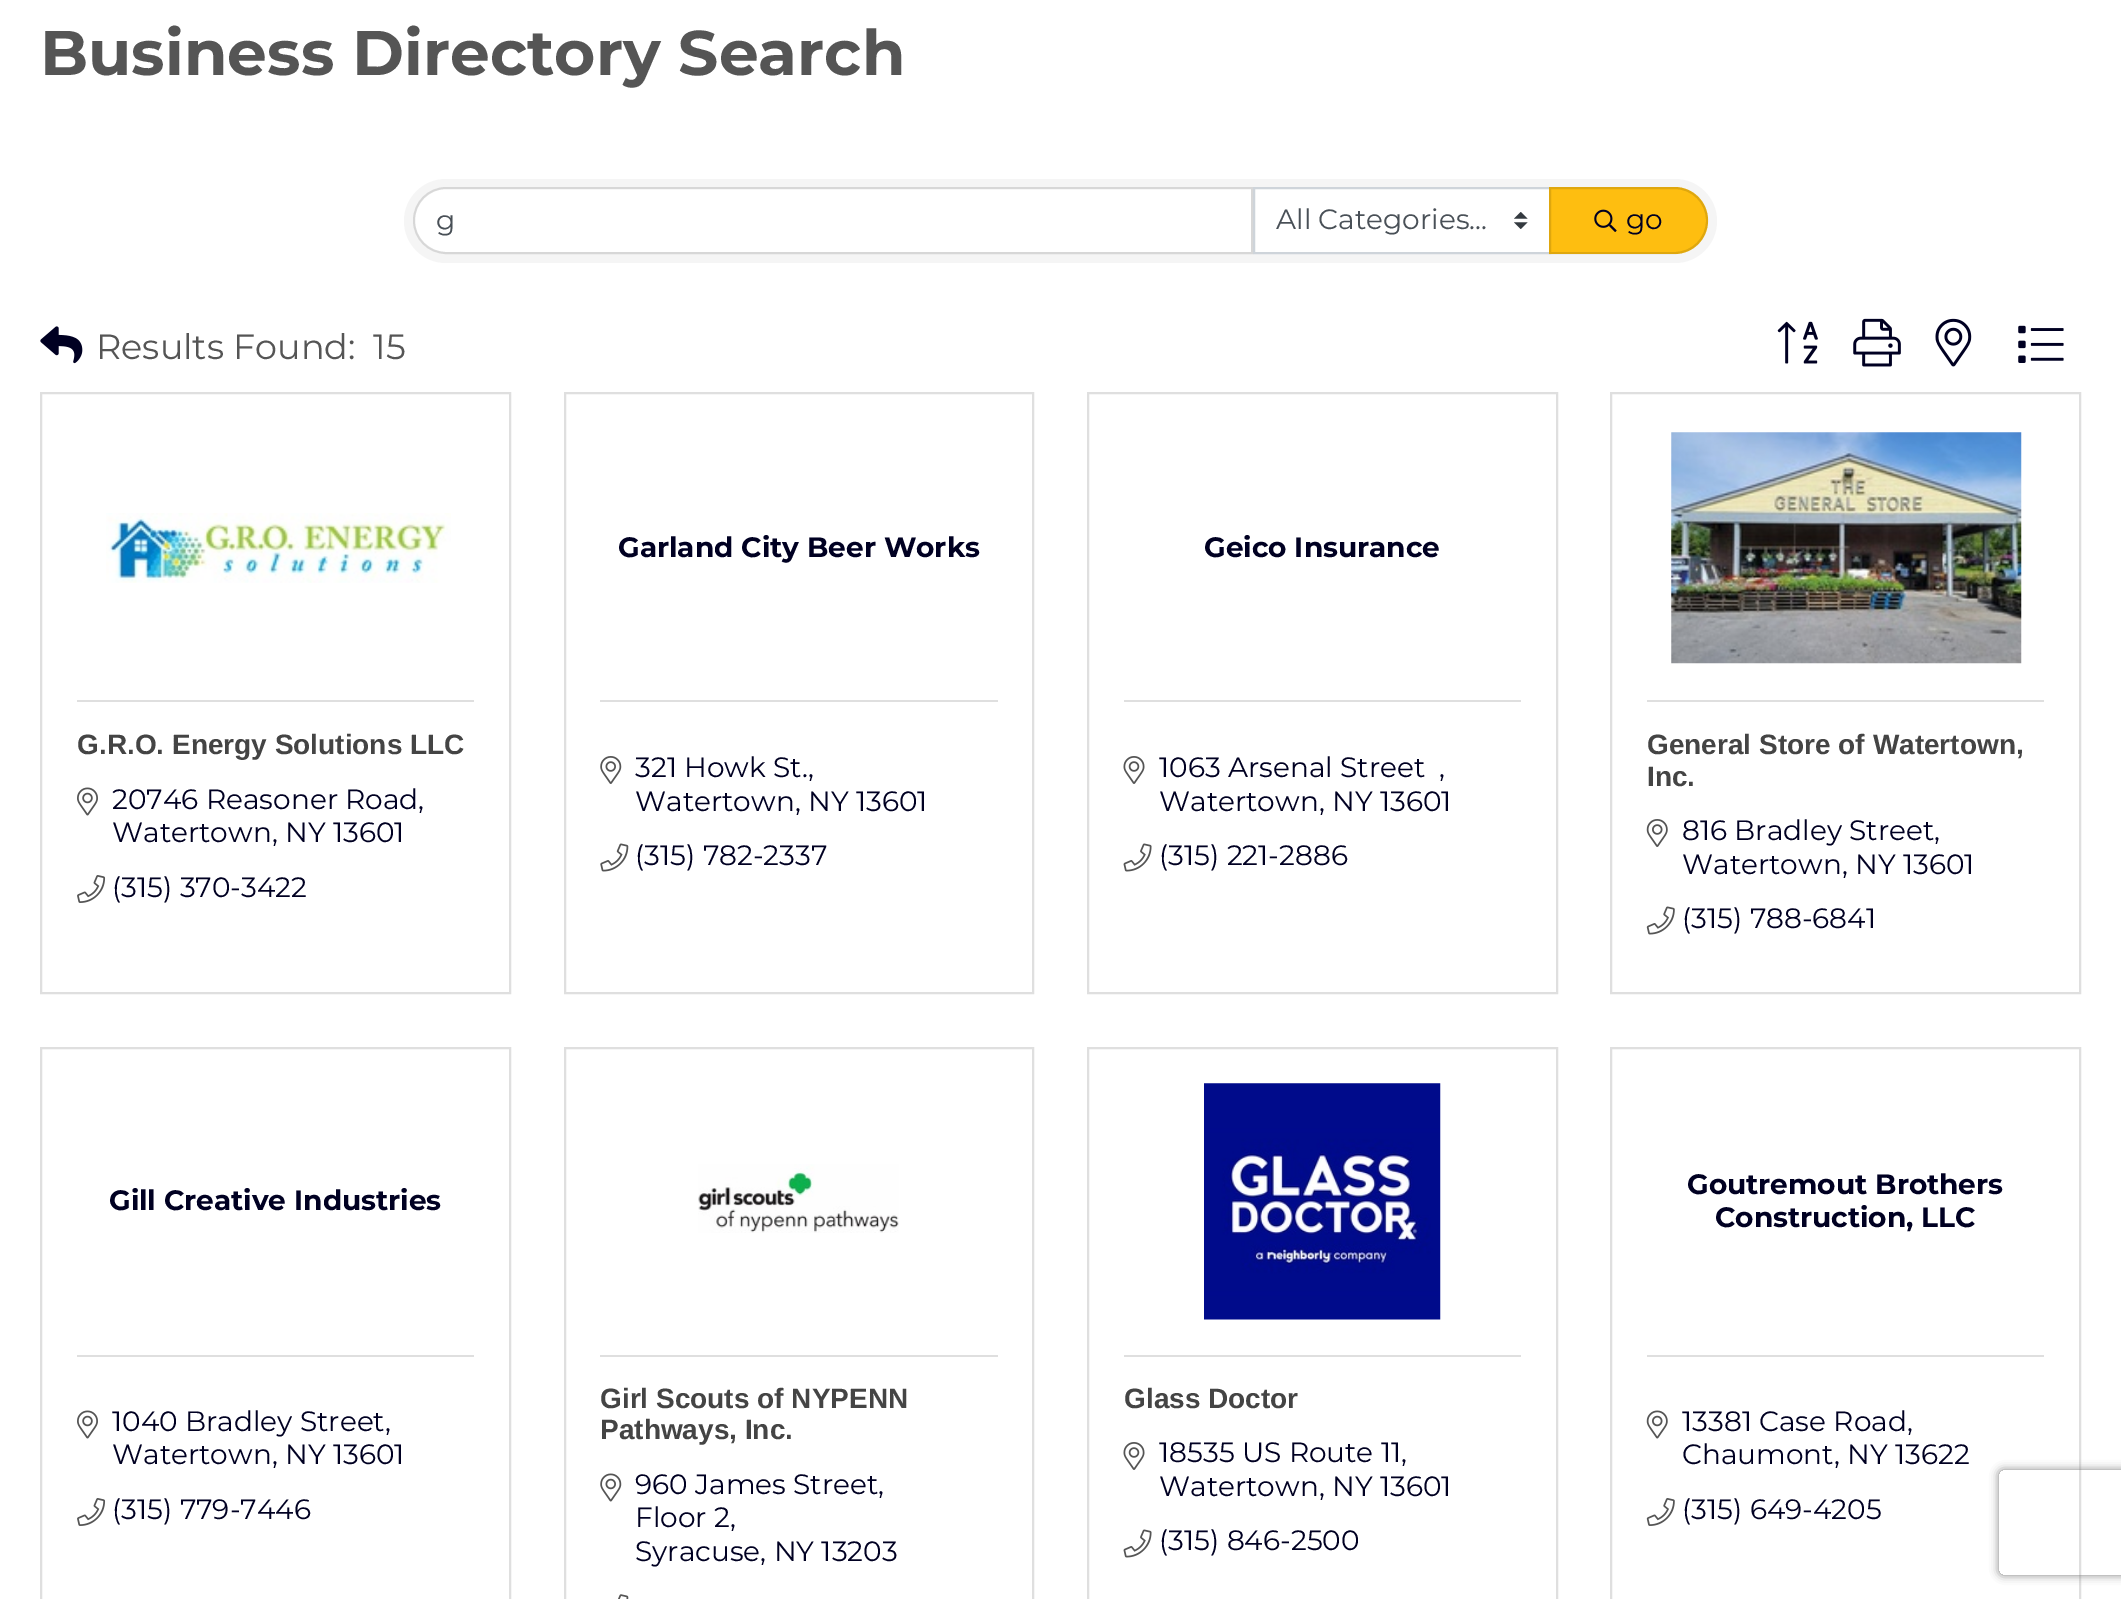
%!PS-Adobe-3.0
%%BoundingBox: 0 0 2121 1599
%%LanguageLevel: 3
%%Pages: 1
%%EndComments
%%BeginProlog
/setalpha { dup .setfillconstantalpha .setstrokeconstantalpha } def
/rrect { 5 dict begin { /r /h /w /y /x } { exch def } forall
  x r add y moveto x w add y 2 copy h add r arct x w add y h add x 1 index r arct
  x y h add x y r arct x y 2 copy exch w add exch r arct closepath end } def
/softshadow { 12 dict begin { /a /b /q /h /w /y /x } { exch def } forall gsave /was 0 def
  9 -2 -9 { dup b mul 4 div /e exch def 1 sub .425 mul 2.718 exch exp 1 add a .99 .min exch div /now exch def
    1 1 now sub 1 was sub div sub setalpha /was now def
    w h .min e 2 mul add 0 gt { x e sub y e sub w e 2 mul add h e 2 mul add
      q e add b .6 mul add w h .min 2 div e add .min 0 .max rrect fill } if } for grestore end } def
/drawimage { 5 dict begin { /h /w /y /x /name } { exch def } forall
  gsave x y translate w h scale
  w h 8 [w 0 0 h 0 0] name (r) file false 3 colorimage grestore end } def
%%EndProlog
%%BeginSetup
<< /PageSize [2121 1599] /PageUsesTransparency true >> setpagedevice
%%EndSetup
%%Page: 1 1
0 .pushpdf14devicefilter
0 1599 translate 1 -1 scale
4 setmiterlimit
1 setgray
0 0 2121 1599 rectfill
0.961 setgray
404 179 1313 84 42 rrect fill
1 setgray
newpath 446.5 189 moveto 1251 189 lineto 1251 252 lineto 446.5 252 lineto 429 252 415 238 415 220.5 curveto 415 203 429 189 446.5 189 curveto closepath fill
0.12 setalpha
0 setgray
2 setlinewidth
newpath 446.5 188 moveto 1252 188 lineto 1252 253 lineto 446.5 253 lineto 428.5 253 414 238.5 414 220.5 curveto 414 202.5 428.5 188 446.5 188 curveto closepath stroke
1 setalpha
1 setgray
1255 189 294 63 rectfill
(images/1.raw) 1514 212 14 17 drawimage
0.808 0.831 0.855 setrgbcolor
1254 188 296 65 rectstroke
0.996 0.745 0.063 setrgbcolor
newpath 1549 187 moveto 1674.5 187 lineto 1693 187 1708 202 1708 220.5 curveto 1708 239 1693 254 1674.5 254 curveto 1549 254 lineto closepath fill
0.12 setalpha
0 setgray
newpath 1550 188 moveto 1674.5 188 lineto 1692.5 188 1707 202.5 1707 220.5 curveto 1707 238.5 1692.5 253 1674.5 253 curveto 1550 253 lineto closepath stroke
1 setalpha
(images/2.raw) 1594 209 23 23 drawimage
(images/3.raw) 40 326 43 38 drawimage
(images/4.raw) 1777 321 41 43 drawimage
(images/5.raw) 1853 318 48 49 drawimage
(images/6.raw) 1935 318 37 49 drawimage
(images/7.raw) 2018 325 46 38 drawimage
0.875 setgray
41 393 469 600 rectstroke
(images/8.raw) 106 513 345 70 drawimage
77 700 397 2 rectfill
(images/9.raw) 77 787 21 29 drawimage
(images/10.raw) 77 875 29 28 drawimage
565 393 468 600 rectstroke
600 700 398 2 rectfill
(images/11.raw) 600 756 22 28 drawimage
(images/12.raw) 600 843 29 29 drawimage
1088 393 469 600 rectstroke
1124 700 397 2 rectfill
(images/13.raw) 1123 756 22 28 drawimage
(images/14.raw) 1123 843 29 29 drawimage
1611 393 469 600 rectstroke
(images/15.raw) 1671 432 351 232 drawimage
1647 700 397 2 rectfill
(images/16.raw) 1646 819 22 28 drawimage
(images/17.raw) 1646 906 29 29 drawimage
41 1048 469 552 rectstroke
77 1355 397 2 rectfill
(images/9.raw) 77 1410 21 29 drawimage
(images/10.raw) 77 1498 29 28 drawimage
565 1048 468 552 rectstroke
(images/18.raw) 698 1164 201 69 drawimage
600 1355 398 2 rectfill
(images/19.raw) 600 1473 22 29 drawimage
(images/20.raw) 618 1594 11 5 drawimage
1088 1048 469 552 rectstroke
(images/21.raw) 1204 1083 237 237 drawimage
1124 1355 397 2 rectfill
(images/13.raw) 1123 1442 22 28 drawimage
(images/14.raw) 1123 1529 29 29 drawimage
1611 1048 469 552 rectstroke
1647 1355 397 2 rectfill
(images/22.raw) 1646 1410 22 29 drawimage
(images/23.raw) 1646 1498 29 28 drawimage
gsave
newpath 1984 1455 moveto 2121 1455 lineto 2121 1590 lineto 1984 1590 lineto closepath 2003 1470 moveto 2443 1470 lineto 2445 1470 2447 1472 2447 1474 curveto 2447 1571 lineto 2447 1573 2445 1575 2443 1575 curveto 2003 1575 lineto 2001 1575 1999 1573 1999 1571 curveto 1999 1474 lineto 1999 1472 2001 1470 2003 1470 curveto closepath eoclip newpath
0.502 setgray
1999 1470 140 105 4 4.5 1 softshadow
grestore
/Montserrat-Bold [63 0 0 -63 0 0] selectfont
0.333 setgray
40 75 moveto (Business Directory Search) show
/Montserrat-Regular [28 0 0 -28 0 0] selectfont
0.286 0.314 0.341 setrgbcolor
436 230 moveto (g) show
1276 229 moveto (All Categories...) show
0 0 0.133 setrgbcolor
1626 229 moveto (go) show
/Montserrat-Regular [35 0 0 -35 0 0] selectfont
0.333 setgray
96 359 moveto (Results Found:) show
373 359 moveto (15) show
/LiberationSans-Bold [28 0 0 -28 0 0] selectfont
0.267 setgray
77 754 moveto (G.R.O. Energy Solutions LLC) show
/Montserrat-Regular [28 0 0 -28 0 0] selectfont
0 0 0.133 setrgbcolor
112 809 moveto (20746 Reasoner Road,) show
112 842 moveto (Watertown, NY 13601) show
112 897 moveto (\(315\) 370-3422) show
/Montserrat-Bold [28 0 0 -28 0 0] selectfont
618 557 moveto (Garland City Beer Works) show
/Montserrat-Regular [28 0 0 -28 0 0] selectfont
635 777 moveto (321 Howk St.,) show
635 811 moveto (Watertown, NY 13601) show
635 865 moveto (\(315\) 782-2337) show
/Montserrat-Bold [28 0 0 -28 0 0] selectfont
1204 557 moveto (Geico Insurance) show
/Montserrat-Regular [28 0 0 -28 0 0] selectfont
1159 777 moveto (1063 Arsenal Street) show
1439 777 moveto (,) show
1159 811 moveto (Watertown, NY 13601) show
1159 865 moveto (\(315\) 221-2886) show
/LiberationSans-Bold [28 0 0 -28 0 0] selectfont
0.267 setgray
1647 754 moveto (General Store of Watertown,) show
1647 786 moveto (Inc.) show
/Montserrat-Regular [28 0 0 -28 0 0] selectfont
0 0 0.133 setrgbcolor
1682 840 moveto (816 Bradley Street,) show
1682 874 moveto (Watertown, NY 13601) show
1682 928 moveto (\(315\) 788-6841) show
/Montserrat-Bold [28 0 0 -28 0 0] selectfont
109 1210 moveto (Gill Creative Industries) show
/Montserrat-Regular [28 0 0 -28 0 0] selectfont
112 1431 moveto (1040 Bradley Street,) show
112 1464 moveto (Watertown, NY 13601) show
112 1519 moveto (\(315\) 779-7446) show
/LiberationSans-Bold [28 0 0 -28 0 0] selectfont
0.267 setgray
600 1408 moveto (Girl Scouts of NYPENN) show
600 1439 moveto (Pathways, Inc.) show
/Montserrat-Regular [28 0 0 -28 0 0] selectfont
0 0 0.133 setrgbcolor
635 1494 moveto (960 James Street,) show
635 1527 moveto (Floor 2,) show
635 1561 moveto (Syracuse, NY 13203) show
/LiberationSans-Bold [28 0 0 -28 0 0] selectfont
0.267 setgray
1124 1408 moveto (Glass Doctor) show
/Montserrat-Regular [28 0 0 -28 0 0] selectfont
0 0 0.133 setrgbcolor
1159 1462 moveto (18535 US Route 11,) show
1159 1496 moveto (Watertown, NY 13601) show
1159 1550 moveto (\(315\) 846-2500) show
/Montserrat-Bold [28 0 0 -28 0 0] selectfont
1687 1194 moveto (Goutremout Brothers) show
1715 1227 moveto (Construction, LLC) show
/Montserrat-Regular [28 0 0 -28 0 0] selectfont
1682 1431 moveto (13381 Case Road,) show
1682 1464 moveto (Chaumont, NY 13622) show
1682 1519 moveto (\(315\) 649-4205) show
.poppdf14devicefilter showpage
%%EOF
